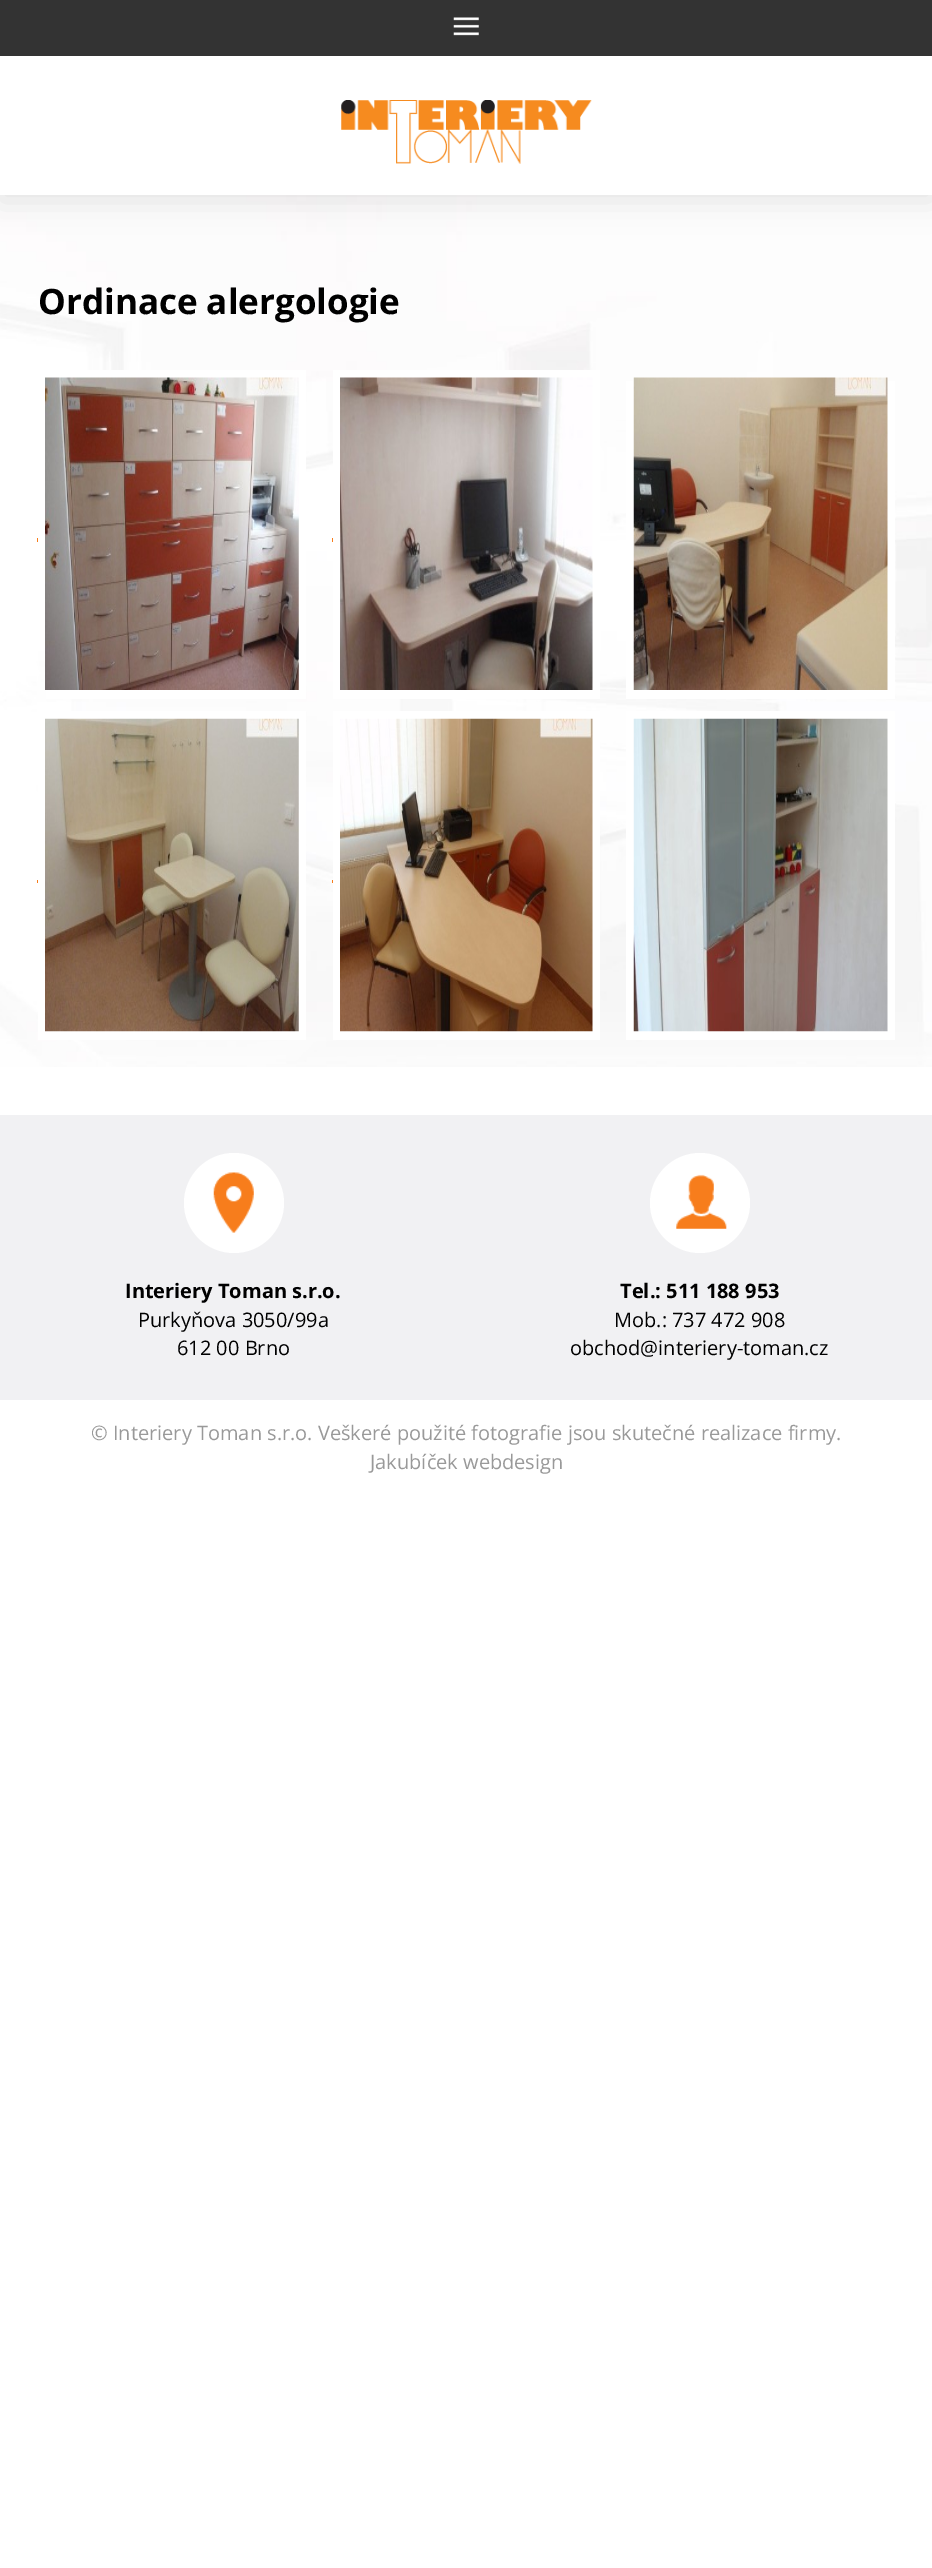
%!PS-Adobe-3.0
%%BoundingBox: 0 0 932 2568
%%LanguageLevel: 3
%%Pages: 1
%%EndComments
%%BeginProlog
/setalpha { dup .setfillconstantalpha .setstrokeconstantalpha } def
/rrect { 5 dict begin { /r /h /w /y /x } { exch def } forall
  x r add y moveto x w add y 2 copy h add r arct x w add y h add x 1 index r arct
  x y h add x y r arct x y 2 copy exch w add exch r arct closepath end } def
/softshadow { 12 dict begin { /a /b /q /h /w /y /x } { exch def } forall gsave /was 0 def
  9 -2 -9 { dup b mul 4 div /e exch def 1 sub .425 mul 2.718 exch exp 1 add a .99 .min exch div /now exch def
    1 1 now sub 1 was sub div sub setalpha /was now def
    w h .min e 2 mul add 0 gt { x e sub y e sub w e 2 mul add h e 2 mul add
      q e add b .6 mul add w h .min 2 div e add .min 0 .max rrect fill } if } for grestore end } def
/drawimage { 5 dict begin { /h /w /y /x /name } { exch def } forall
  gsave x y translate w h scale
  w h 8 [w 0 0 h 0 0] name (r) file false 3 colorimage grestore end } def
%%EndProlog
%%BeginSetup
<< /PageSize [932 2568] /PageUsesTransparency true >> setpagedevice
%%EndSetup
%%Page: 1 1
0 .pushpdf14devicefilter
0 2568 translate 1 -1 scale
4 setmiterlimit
1 setgray
0 0 932 2568 rectfill
(images/3.raw) 0 195 932 872 drawimage
0 setgray
0 6 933 195 0 15 0.1 softshadow
1 setgray
0 56 932 139 rectfill
0.2 setgray
0 0 932 56 rectfill
(images/1.raw) 453 17 26 19 drawimage
(images/2.raw) 341 100 251 64 drawimage
0.969 0.49 0.11 setrgbcolor
37 538 1 4 rectfill
1 setgray
46 370 260 329 rectfill
(images/4.raw) 45 377 254 313 drawimage
0.969 0.49 0.11 setrgbcolor
332 538 1 4 rectfill
1 setgray
333 370 267 329 rectfill
(images/5.raw) 340 377 253 313 drawimage
626 381 269 318 rectfill
(images/6.raw) 633 377 255 313 drawimage
0.969 0.49 0.11 setrgbcolor
37 880 3 3 rectfill
1 setgray
38 711 268 329 rectfill
(images/7.raw) 45 718 254 314 drawimage
0.969 0.49 0.11 setrgbcolor
332 880 3 3 rectfill
1 setgray
333 711 267 329 rectfill
(images/8.raw) 340 718 253 314 drawimage
626 711 269 329 rectfill
(images/9.raw) 633 718 255 314 drawimage
0.945 0.945 0.953 setrgbcolor
0 1115 932 285 rectfill
1 setgray
newpath 234 1203 50 0 360 arc closepath fill
(images/10.raw) 213 1172 41 61 drawimage
newpath 700 1203 50 0 360 arc closepath fill
(images/11.raw) 676 1174 51 55 drawimage
/OpenSans-Bold [35 0 0 -35 0 0] selectfont
0 setgray
38 314 moveto (Ordinace alergologie) show
/OpenSans-Bold [20 0 0 -20 0 0] selectfont
125 1298 moveto (Interiery Toman s.r.o.) show
/OpenSans-Regular [20 0 0 -20 0 0] selectfont
138 1327 moveto (Purkyňova 3050/99a) show
177 1355 moveto (612 00 Brno) show
/OpenSans-Bold [20 0 0 -20 0 0] selectfont
620 1298 moveto (Tel.: 511 188 953) show
/OpenSans-Regular [20 0 0 -20 0 0] selectfont
614 1327 moveto (Mob.: 737 472 908) show
570 1355 moveto (obchod@interiery-toman.cz) show
0.6 setgray
91 1440 moveto (© Interiery Toman s.r.o. Veškeré použité fotografie jsou skutečné realizace firmy.) show
370 1469 moveto (Jakubíček webdesign) show
.poppdf14devicefilter showpage
%%EOF
